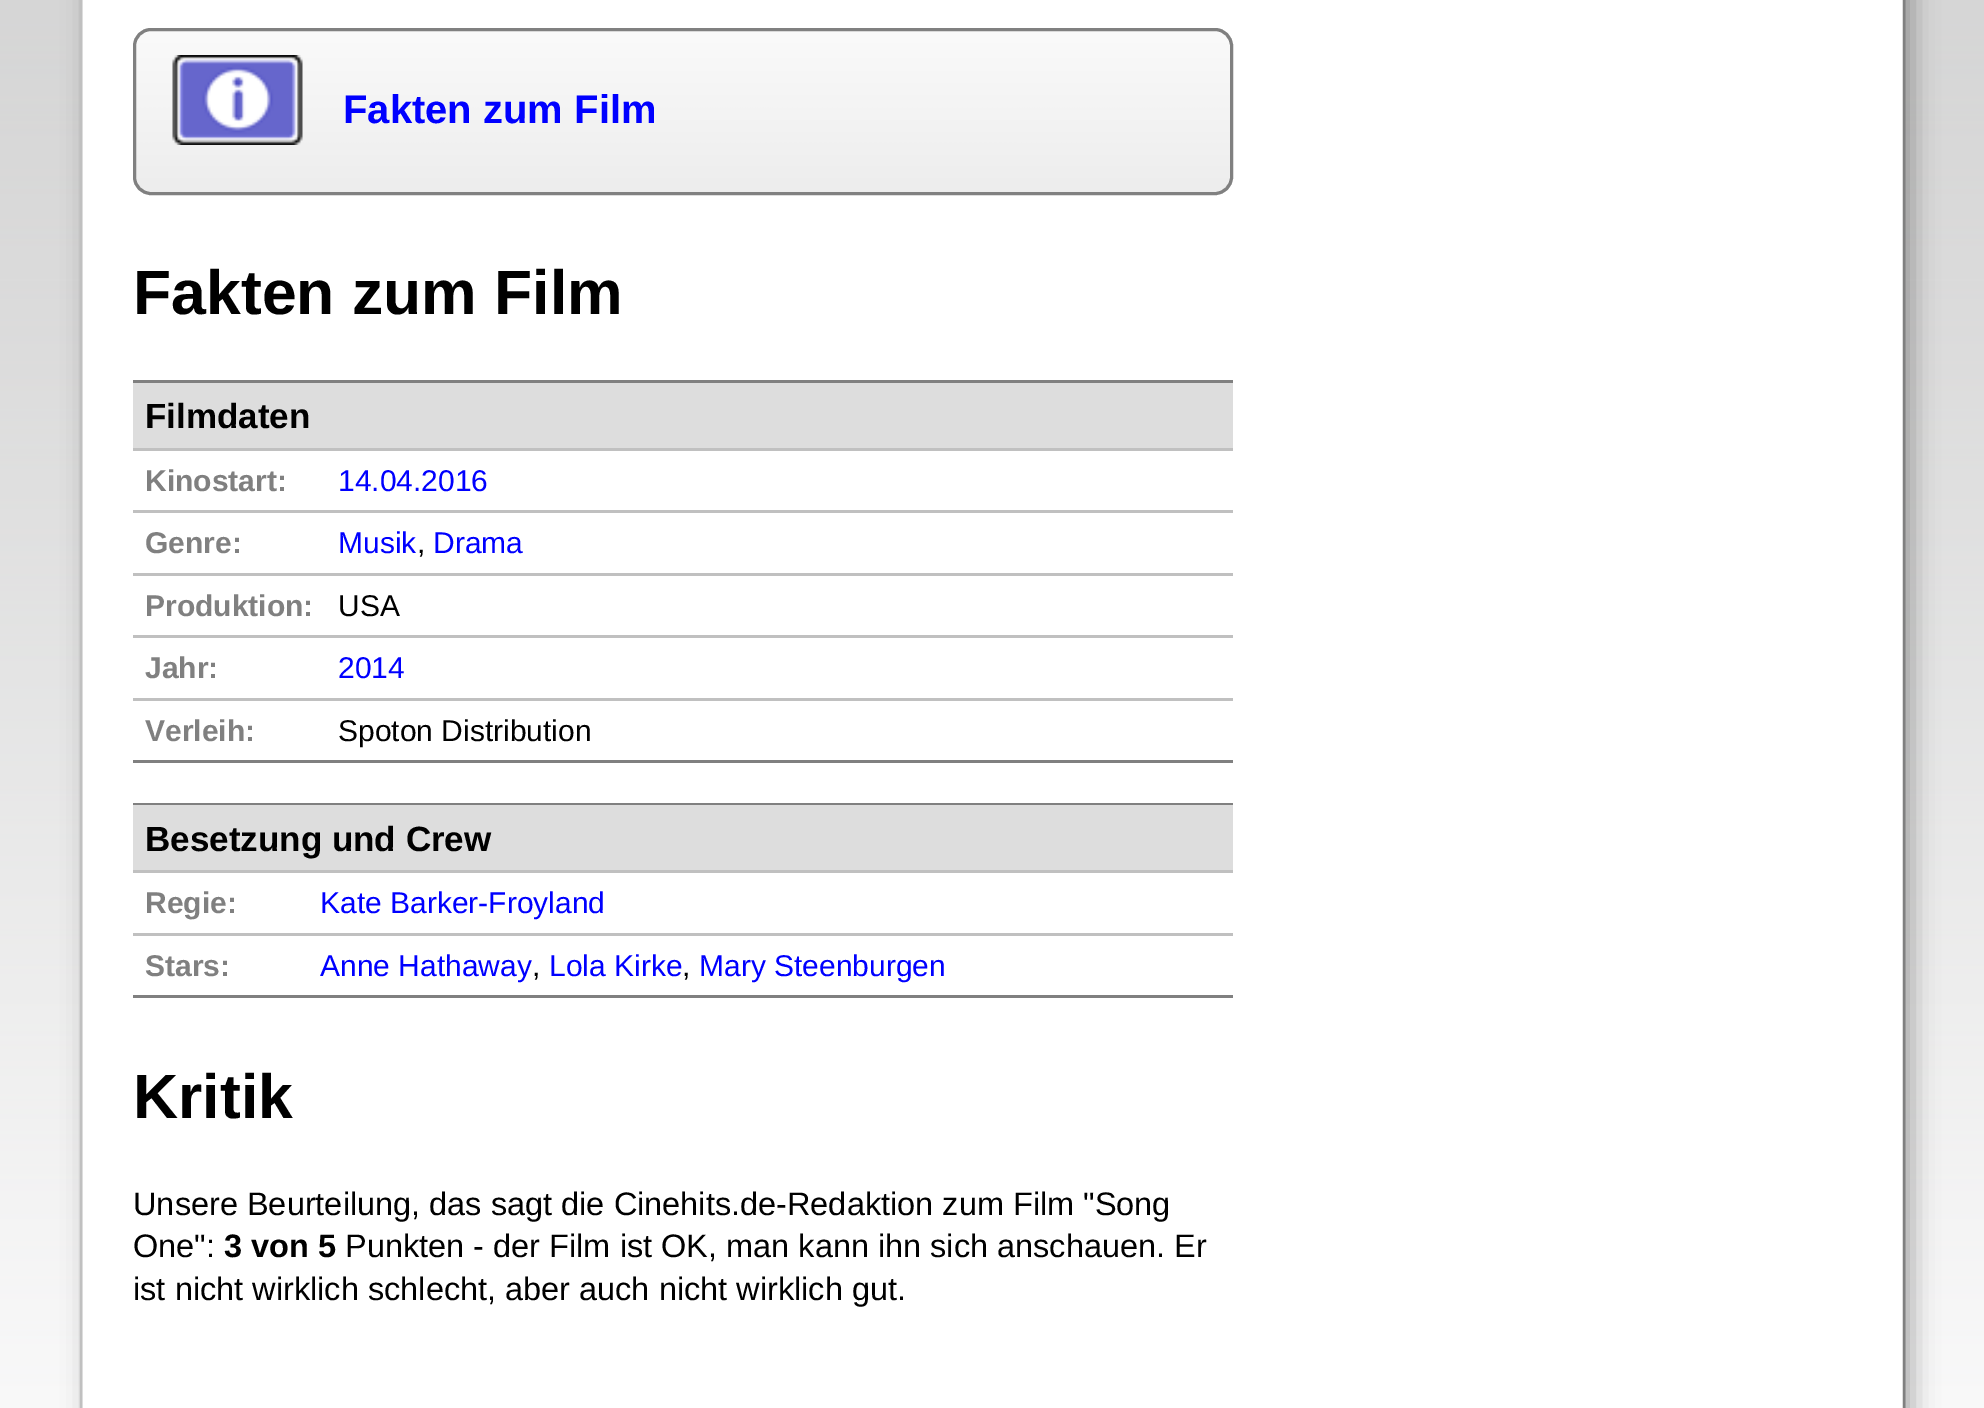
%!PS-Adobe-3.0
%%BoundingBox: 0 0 1984 1408
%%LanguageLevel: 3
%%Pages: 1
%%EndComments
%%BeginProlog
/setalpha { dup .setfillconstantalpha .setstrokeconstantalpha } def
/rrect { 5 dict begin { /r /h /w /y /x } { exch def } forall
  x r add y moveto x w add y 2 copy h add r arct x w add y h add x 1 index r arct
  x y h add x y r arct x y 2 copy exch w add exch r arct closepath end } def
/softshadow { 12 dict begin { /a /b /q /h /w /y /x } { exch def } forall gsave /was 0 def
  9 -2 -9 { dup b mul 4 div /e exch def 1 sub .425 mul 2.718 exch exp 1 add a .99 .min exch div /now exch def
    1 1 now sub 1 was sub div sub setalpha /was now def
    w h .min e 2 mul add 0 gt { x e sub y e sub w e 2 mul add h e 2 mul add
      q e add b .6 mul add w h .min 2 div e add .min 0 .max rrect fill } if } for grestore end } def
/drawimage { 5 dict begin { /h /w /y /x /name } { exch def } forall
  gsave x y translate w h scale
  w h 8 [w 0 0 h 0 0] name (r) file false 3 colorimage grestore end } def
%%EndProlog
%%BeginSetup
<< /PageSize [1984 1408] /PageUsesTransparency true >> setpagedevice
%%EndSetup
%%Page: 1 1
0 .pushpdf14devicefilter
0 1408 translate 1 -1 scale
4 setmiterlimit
1 setgray
0 0 1984 1408 rectfill
(images/1.raw) 0 0 1984 1408 drawimage
0 setgray
88 -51 1825 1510 13 12.5 0.3 softshadow
1 setgray
82 0 1821 1408 rectfill
0.502 setgray
2.5 setlinewidth
newpath 1900.5 -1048 moveto 1902.5 -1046 1904 -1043 1904 -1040 curveto 1904 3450 lineto 1904 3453 1902.5 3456 1900.5 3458 curveto 1898.5 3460 1895.5 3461 1892.5 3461 curveto 92.5 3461 lineto 89.5 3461 86.5 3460 84.5 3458 curveto stroke
0.753 setgray
newpath 84.5 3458 moveto 82.5 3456 81 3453 81 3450 curveto 81 -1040 lineto 81 -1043 82.5 -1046 84.5 -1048 curveto 86.5 -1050 89.5 -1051 92.5 -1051 curveto 1892.5 -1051 lineto 1895.5 -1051 1898.5 -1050 1900.5 -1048 curveto stroke
0.867 setgray
133 28 1100 167 18 rrect fill
(images/2.raw) 133 29 1100 166 drawimage
0.502 setgray
3 setlinewidth
134.5 29.5 1097 164 16.5 rrect stroke
(images/3.raw) 172 55 131 90 drawimage
133 380 1100 3 rectfill
133 760 1100 3 rectfill
0.867 setgray
133 383 1100 65 rectfill
0.753 setgray
133 448 1100 3 rectfill
133 510 1100 3 rectfill
133 573 1100 3 rectfill
133 635 1100 3 rectfill
133 698 1100 3 rectfill
0.502 setgray
133 803 1100 2 rectfill
133 995 1100 3 rectfill
0.867 setgray
133 805 1100 65 rectfill
0.753 setgray
133 870 1100 3 rectfill
133 933 1100 3 rectfill
/LiberationSans-Bold [40 0 0 -40 0 0] selectfont
0 0 1 setrgbcolor
343 123 moveto (Fakten zum Film) show
/LiberationSans-Bold [62.5 0 0 -62.5 0 0] selectfont
0 setgray
133 314 moveto (Fakten zum Film) show
/LiberationSans-Bold [35 0 0 -35 0 0] selectfont
145 428 moveto (Filmdaten) show
/LiberationSans-Bold [30 0 0 -30 0 0] selectfont
0.502 setgray
145 491 moveto (Kinostart:) show
/LiberationSans-Regular [30 0 0 -30 0 0] selectfont
0 0 1 setrgbcolor
338 491 moveto (14.04.2016) show
/LiberationSans-Bold [30 0 0 -30 0 0] selectfont
0.502 setgray
145 553 moveto (Genre:) show
/LiberationSans-Regular [30 0 0 -30 0 0] selectfont
0 0 1 setrgbcolor
338 553 moveto (Musik) show
0 setgray
417 553 moveto (,) show
0 0 1 setrgbcolor
433 553 moveto (Drama) show
/LiberationSans-Bold [30 0 0 -30 0 0] selectfont
0.502 setgray
145 616 moveto (Produktion:) show
/LiberationSans-Regular [30 0 0 -30 0 0] selectfont
0 setgray
338 616 moveto (USA) show
/LiberationSans-Bold [30 0 0 -30 0 0] selectfont
0.502 setgray
145 678 moveto (Jahr:) show
/LiberationSans-Regular [30 0 0 -30 0 0] selectfont
0 0 1 setrgbcolor
338 678 moveto (2014) show
/LiberationSans-Bold [30 0 0 -30 0 0] selectfont
0.502 setgray
145 741 moveto (Verleih:) show
/LiberationSans-Regular [30 0 0 -30 0 0] selectfont
0 setgray
338 741 moveto (Spoton Distribution) show
/LiberationSans-Bold [35 0 0 -35 0 0] selectfont
145 851 moveto (Besetzung und Crew) show
/LiberationSans-Bold [30 0 0 -30 0 0] selectfont
0.502 setgray
145 913 moveto (Regie:) show
/LiberationSans-Regular [30 0 0 -30 0 0] selectfont
0 0 1 setrgbcolor
320 913 moveto (Kate Barker-Froyland) show
/LiberationSans-Bold [30 0 0 -30 0 0] selectfont
0.502 setgray
145 976 moveto (Stars:) show
/LiberationSans-Regular [30 0 0 -30 0 0] selectfont
0 0 1 setrgbcolor
320 976 moveto (Anne Hathaway) show
0 setgray
532 976 moveto (,) show
0 0 1 setrgbcolor
549 976 moveto (Lola Kirke) show
0 setgray
682 976 moveto (,) show
0 0 1 setrgbcolor
699 976 moveto (Mary Steenburgen) show
/LiberationSans-Bold [62.5 0 0 -62.5 0 0] selectfont
0 setgray
133 1118 moveto (Kritik) show
/LiberationSans-Regular [32.5 0 0 -32.5 0 0] selectfont
133 1215 moveto (Unsere Beurteilung, das sagt die Cinehits.de-Redaktion zum Film "Song) show
133 1257 moveto (One":) show
/LiberationSans-Bold [32.5 0 0 -32.5 0 0] selectfont
224 1257 moveto (3 von 5) show
/LiberationSans-Regular [32.5 0 0 -32.5 0 0] selectfont
345 1257 moveto (Punkten - der Film ist OK, man kann ihn sich anschauen. Er) show
133 1300 moveto (ist nicht wirklich schlecht, aber auch nicht wirklich gut.) show
.poppdf14devicefilter showpage
%%EOF
